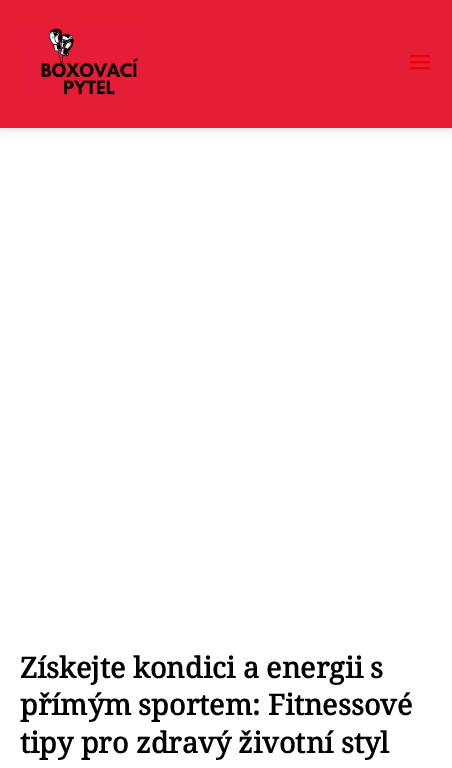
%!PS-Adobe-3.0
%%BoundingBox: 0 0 452 768
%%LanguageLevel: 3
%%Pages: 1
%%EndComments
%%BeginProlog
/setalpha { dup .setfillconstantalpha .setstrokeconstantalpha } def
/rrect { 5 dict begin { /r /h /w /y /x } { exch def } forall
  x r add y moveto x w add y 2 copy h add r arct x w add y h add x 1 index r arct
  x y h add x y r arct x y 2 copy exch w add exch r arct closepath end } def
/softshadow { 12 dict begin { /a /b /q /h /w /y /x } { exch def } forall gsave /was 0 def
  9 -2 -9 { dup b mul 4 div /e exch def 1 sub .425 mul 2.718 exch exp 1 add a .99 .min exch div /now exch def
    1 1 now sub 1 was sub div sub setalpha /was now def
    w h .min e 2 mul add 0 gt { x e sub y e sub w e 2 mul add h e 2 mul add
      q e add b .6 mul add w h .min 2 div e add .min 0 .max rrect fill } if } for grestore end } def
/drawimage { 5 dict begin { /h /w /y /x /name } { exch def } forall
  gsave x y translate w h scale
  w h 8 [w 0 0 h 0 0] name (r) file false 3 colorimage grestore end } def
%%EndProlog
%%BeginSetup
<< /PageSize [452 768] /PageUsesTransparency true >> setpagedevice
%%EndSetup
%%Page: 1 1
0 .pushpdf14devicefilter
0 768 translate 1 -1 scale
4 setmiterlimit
1 setgray
0 0 452 768 rectfill
0 setgray
0 1 452 128 0 5 0.15 softshadow
0.894 0.118 0.204 setrgbcolor
0 0 452 128 rectfill
(images/1.raw) 20 24 119 72 drawimage
0.957 0 0 setrgbcolor
2 setlinewidth
1 setlinecap
1 setlinejoin
newpath 411 62 moveto 429 62 lineto 411 56 moveto 429 56 lineto 411 68 moveto 429 68 lineto stroke
/NotoSerif-Bold [28.75 0 0 -28.75 0 0] selectfont
0 setgray
20 678 moveto (Získejte kondici a energii s) show
20 715 moveto (přímým sportem: Fitnessové) show
20 753 moveto (tipy pro zdravý životní styl) show
.poppdf14devicefilter showpage
%%EOF
